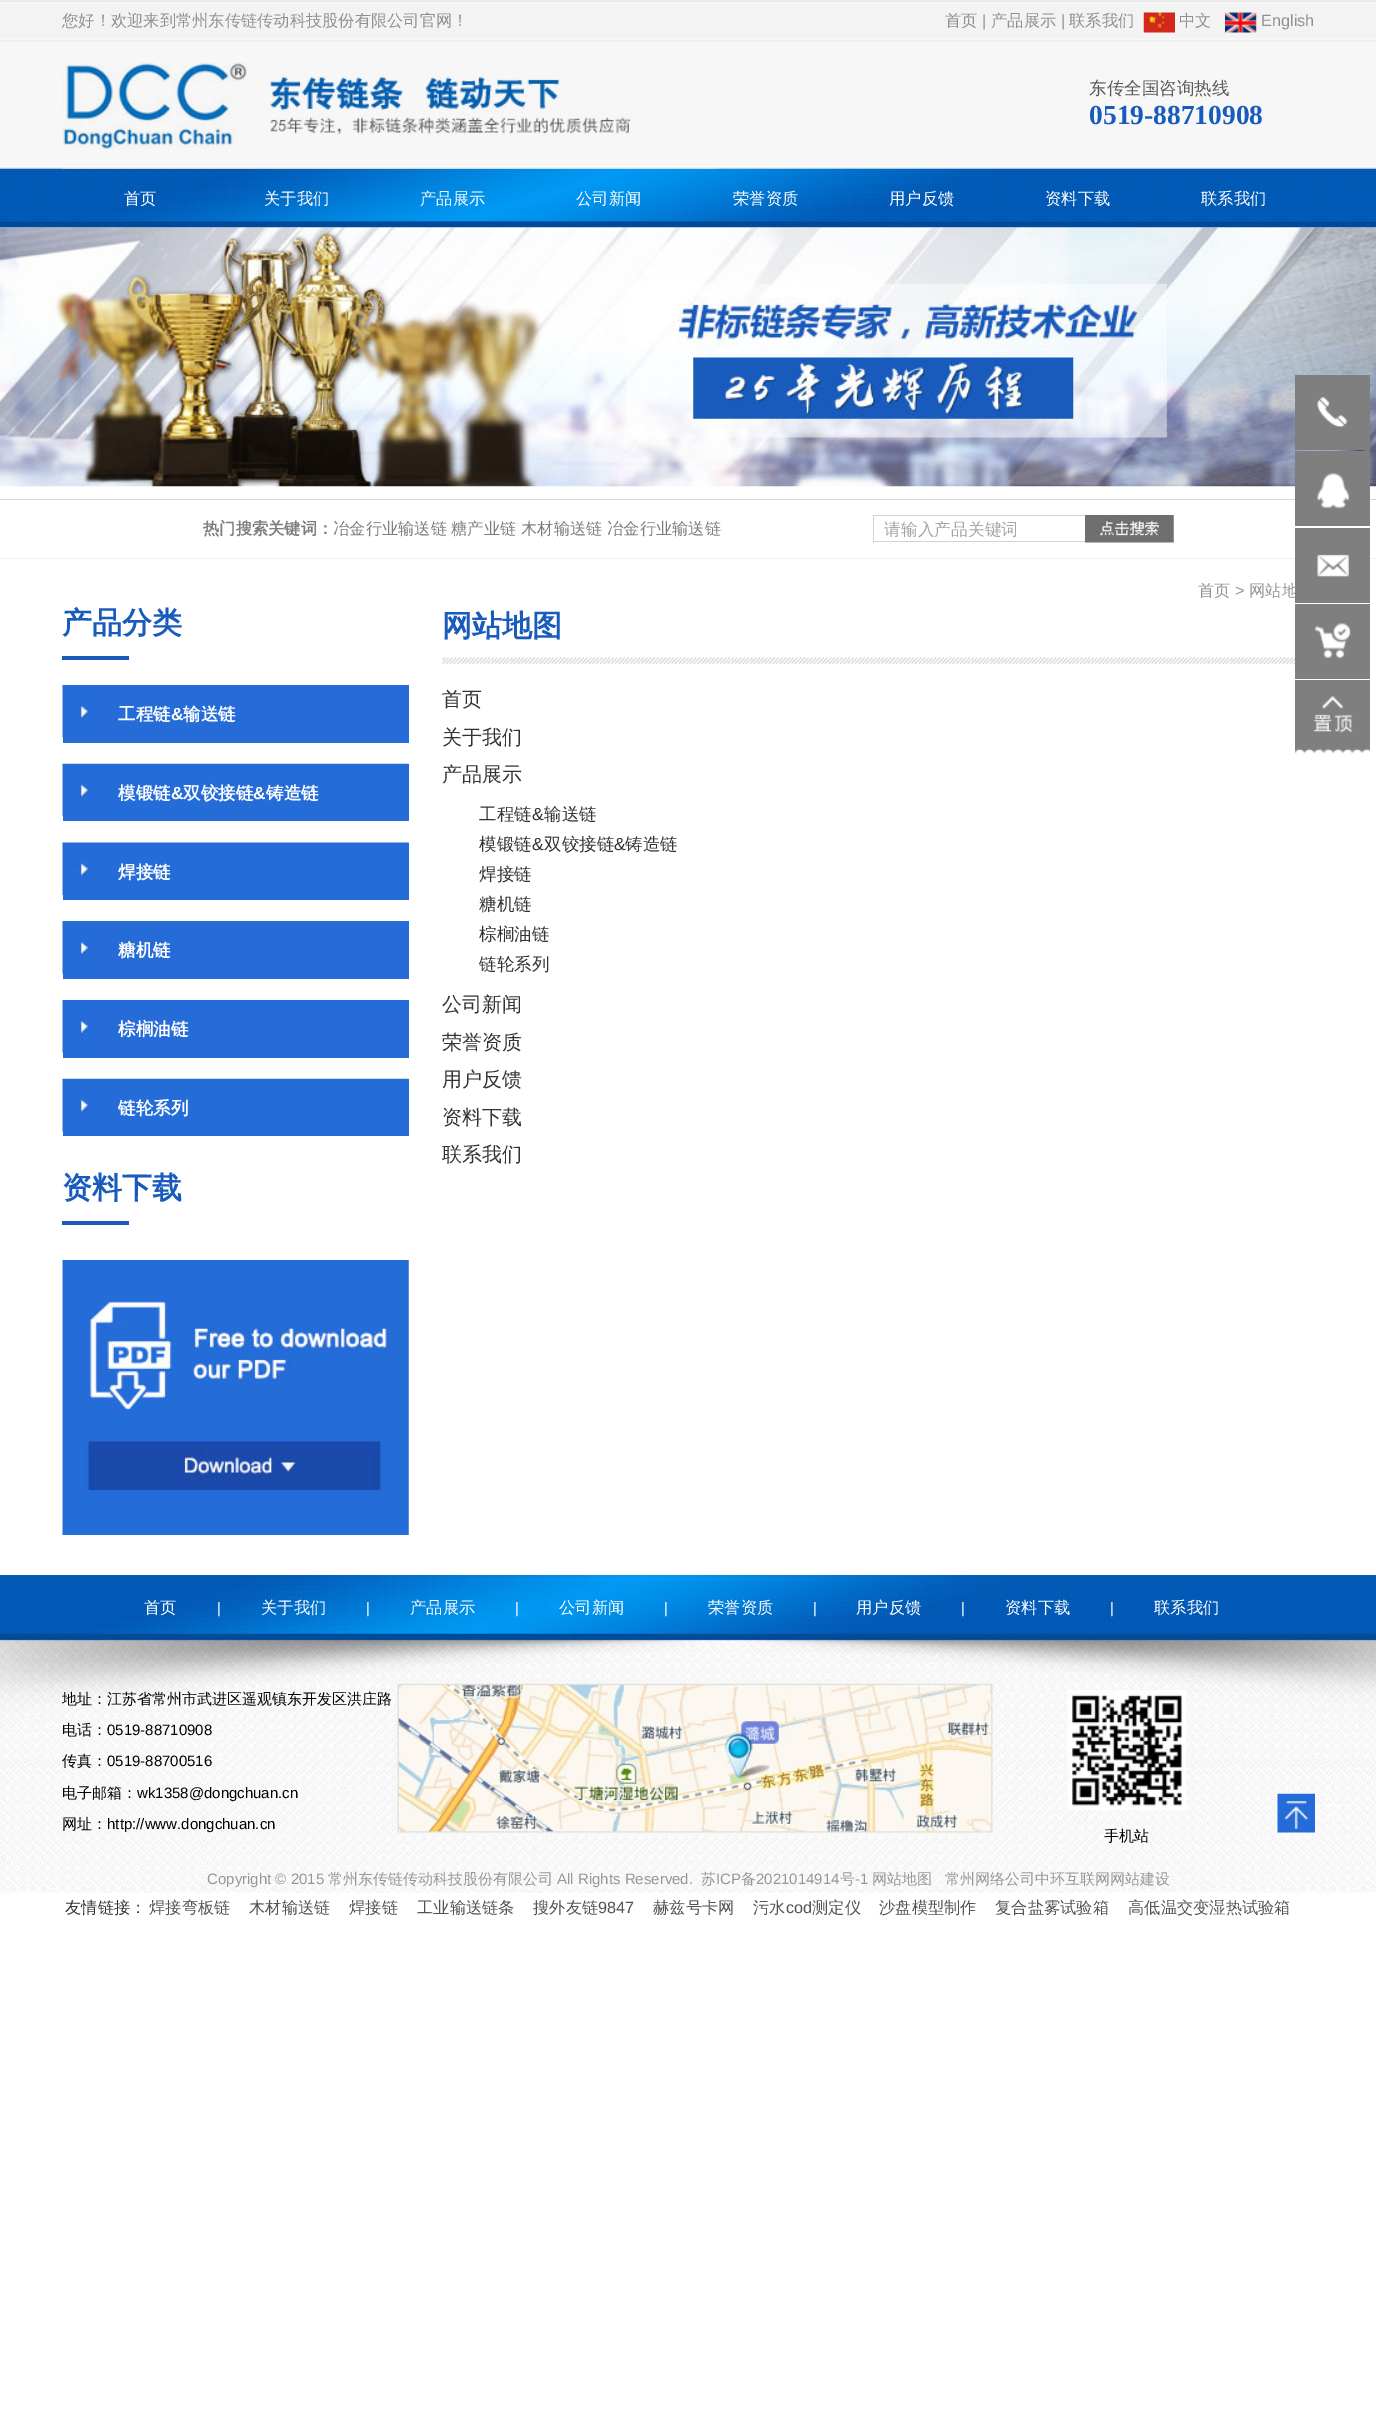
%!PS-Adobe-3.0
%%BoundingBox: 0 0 1376 2432
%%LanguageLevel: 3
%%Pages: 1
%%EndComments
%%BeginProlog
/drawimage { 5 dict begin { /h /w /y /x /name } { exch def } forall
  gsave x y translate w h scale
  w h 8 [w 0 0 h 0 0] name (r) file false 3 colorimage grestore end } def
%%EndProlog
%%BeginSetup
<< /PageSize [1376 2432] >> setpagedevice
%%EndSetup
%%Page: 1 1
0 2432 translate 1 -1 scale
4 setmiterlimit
1 setgray
0 0 1376 2432 rectfill
(images/1.raw) 0 0 1376 169 drawimage
(images/2.raw) 1143 12 32 21 drawimage
(images/3.raw) 1225 12 32 21 drawimage
(images/5.raw) 0 168 1376 60 drawimage
(images/4.raw) 62 62 657 107 drawimage
(images/6.raw) 0 227 1376 260 drawimage
0.839 setgray
0 499 1376 1 rectfill
0.941 setgray
0 558 1376 1 rectfill
0.827 setgray
873 515 212 1 rectfill
873 541 212 1 rectfill
873 515 1 28 rectfill
(images/7.raw) 1085 515 89 28 drawimage
0.498 setgray
1295 375 75 75 rectfill
(images/8.raw) 1317 397 31 31 drawimage
1295 451 75 75 rectfill
(images/9.raw) 1317 473 32 36 drawimage
1295 604 75 75 rectfill
(images/11.raw) 1314 623 37 36 drawimage
(images/12.raw) 1295 680 75 74 drawimage
0.098 0.357 0.737 setrgbcolor
62 656 67 4 rectfill
0.145 0.424 0.847 setrgbcolor
63 685 346 58 rectfill
(images/13.raw) 62 685 31 53 drawimage
63 764 346 57 rectfill
(images/14.raw) 62 763 347 54 drawimage
63 843 346 57 rectfill
(images/15.raw) 62 842 347 53 drawimage
63 921 346 58 rectfill
(images/16.raw) 62 921 31 53 drawimage
63 1000 346 58 rectfill
(images/13.raw) 62 1000 31 53 drawimage
63 1079 346 57 rectfill
(images/14.raw) 62 1078 347 54 drawimage
0.098 0.357 0.737 setrgbcolor
62 1221 67 4 rectfill
(images/17.raw) 62 1260 347 275 drawimage
(images/18.raw) 442 657 853 7 drawimage
(images/19.raw) 0 1575 1376 318 drawimage
(images/20.raw) 397 1683 596 150 drawimage
(images/21.raw) 1277 1793 38 40 drawimage
(images/22.raw) 1067 1690 119 120 drawimage
/WenQuanYiZenHei-Medium [16.25 0 0 -16.25 0 0] selectfont
0.565 setgray
62 26 moveto (您好！欢迎来到常州东传链传动科技股份有限公司官网！) show
945 26 moveto (首页) show
/LiberationSans-Regular [16.25 0 0 -16.25 0 0] selectfont
982 26 moveto (|) show
/WenQuanYiZenHei-Medium [16.25 0 0 -16.25 0 0] selectfont
991 26 moveto (产品展示) show
/LiberationSans-Regular [16.25 0 0 -16.25 0 0] selectfont
1061 26 moveto (|) show
/WenQuanYiZenHei-Medium [16.25 0 0 -16.25 0 0] selectfont
1069 26 moveto (联系我们) show
1179 26 moveto (中文) show
/LiberationSans-Regular [16.25 0 0 -16.25 0 0] selectfont
1261 26 moveto (English) show
/WenQuanYiZenHei-Medium [17.5 0 0 -17.5 0 0] selectfont
0.349 setgray
1089 94 moveto (东传全国咨询热线) show
/LiberationSerif-Bold [27.5 0 0 -27.5 0 0] selectfont
0.098 0.357 0.737 setrgbcolor
1089 124 moveto (0519-88710908) show
/WenQuanYiZenHei-Medium [16.25 0 0 -16.25 0 0] selectfont
1 setgray
124 204 moveto (首页) show
264 204 moveto (关于我们) show
420 204 moveto (产品展示) show
576 204 moveto (公司新闻) show
733 204 moveto (荣誉资质) show
889 204 moveto (用户反馈) show
1045 204 moveto (资料下载) show
1201 204 moveto (联系我们) show
/WenQuanYiZenHei-Bold [16.25 0 0 -16.25 0 0] selectfont
0.49 setgray
203 534 moveto (热门搜索关键词：) show
/WenQuanYiZenHei-Medium [16.25 0 0 -16.25 0 0] selectfont
333 534 moveto (冶金行业输送链) show
451 534 moveto (糖产业链) show
521 534 moveto (木材输送链) show
607 534 moveto (冶金行业输送链) show
/WenQuanYiZenHei-Medium [16.75 0 0 -16.75 0 0] selectfont
0.647 setgray
884 535 moveto (请输入产品关键词) show
/WenQuanYiZenHei-Medium [16.25 0 0 -16.25 0 0] selectfont
0.592 setgray
1198 596 moveto (首页) show
/LiberationSans-Regular [16.25 0 0 -16.25 0 0] selectfont
1235 596 moveto (>) show
/WenQuanYiZenHei-Medium [16.25 0 0 -16.25 0 0] selectfont
1249 596 moveto (网站地) show
0.498 setgray
1295 528 75 75 rectfill
(images/10.raw) 1317 554 32 23 drawimage
/WenQuanYiZenHei-Bold [30 0 0 -30 0 0] selectfont
0.098 0.357 0.737 setrgbcolor
62 633 moveto (产品分类) show
/WenQuanYiZenHei-Bold [17.5 0 0 -17.5 0 0] selectfont
1 setgray
118 720 moveto (工程链) show
/LiberationSans-Bold [17.5 0 0 -17.5 0 0] selectfont
171 720 moveto (&) show
/WenQuanYiZenHei-Bold [17.5 0 0 -17.5 0 0] selectfont
183 720 moveto (输送链) show
118 799 moveto (模锻链) show
/LiberationSans-Bold [17.5 0 0 -17.5 0 0] selectfont
171 799 moveto (&) show
/WenQuanYiZenHei-Bold [17.5 0 0 -17.5 0 0] selectfont
183 799 moveto (双铰接链) show
/LiberationSans-Bold [17.5 0 0 -17.5 0 0] selectfont
253 799 moveto (&) show
/WenQuanYiZenHei-Bold [17.5 0 0 -17.5 0 0] selectfont
266 799 moveto (铸造链) show
118 878 moveto (焊接链) show
118 956 moveto (糖机链) show
118 1035 moveto (棕榈油链) show
118 1114 moveto (链轮系列) show
/WenQuanYiZenHei-Bold [30 0 0 -30 0 0] selectfont
0.098 0.357 0.737 setrgbcolor
62 1198 moveto (资料下载) show
442 636 moveto (网站地图) show
/WenQuanYiZenHei-Medium [20 0 0 -20 0 0] selectfont
0.2 setgray
442 706 moveto (首页) show
442 744 moveto (关于我们) show
442 781 moveto (产品展示) show
/WenQuanYiZenHei-Medium [17.5 0 0 -17.5 0 0] selectfont
479 820 moveto (工程链) show
/LiberationSans-Regular [17.5 0 0 -17.5 0 0] selectfont
532 820 moveto (&) show
/WenQuanYiZenHei-Medium [17.5 0 0 -17.5 0 0] selectfont
544 820 moveto (输送链) show
479 850 moveto (模锻链) show
/LiberationSans-Regular [17.5 0 0 -17.5 0 0] selectfont
532 850 moveto (&) show
/WenQuanYiZenHei-Medium [17.5 0 0 -17.5 0 0] selectfont
544 850 moveto (双铰接链) show
/LiberationSans-Regular [17.5 0 0 -17.5 0 0] selectfont
614 850 moveto (&) show
/WenQuanYiZenHei-Medium [17.5 0 0 -17.5 0 0] selectfont
625 850 moveto (铸造链) show
479 880 moveto (焊接链) show
479 910 moveto (糖机链) show
479 940 moveto (棕榈油链) show
479 970 moveto (链轮系列) show
/WenQuanYiZenHei-Medium [20 0 0 -20 0 0] selectfont
442 1011 moveto (公司新闻) show
442 1049 moveto (荣誉资质) show
442 1086 moveto (用户反馈) show
442 1124 moveto (资料下载) show
442 1161 moveto (联系我们) show
/WenQuanYiZenHei-Medium [16.25 0 0 -16.25 0 0] selectfont
1 setgray
144 1613 moveto (首页) show
/LiberationSans-Regular [15 0 0 -15 0 0] selectfont
217 1613 moveto (|) show
/WenQuanYiZenHei-Medium [16.25 0 0 -16.25 0 0] selectfont
261 1613 moveto (关于我们) show
/LiberationSans-Regular [15 0 0 -15 0 0] selectfont
366 1613 moveto (|) show
/WenQuanYiZenHei-Medium [16.25 0 0 -16.25 0 0] selectfont
410 1613 moveto (产品展示) show
/LiberationSans-Regular [15 0 0 -15 0 0] selectfont
515 1613 moveto (|) show
/WenQuanYiZenHei-Medium [16.25 0 0 -16.25 0 0] selectfont
559 1613 moveto (公司新闻) show
/LiberationSans-Regular [15 0 0 -15 0 0] selectfont
664 1613 moveto (|) show
/WenQuanYiZenHei-Medium [16.25 0 0 -16.25 0 0] selectfont
708 1613 moveto (荣誉资质) show
/LiberationSans-Regular [15 0 0 -15 0 0] selectfont
813 1613 moveto (|) show
/WenQuanYiZenHei-Medium [16.25 0 0 -16.25 0 0] selectfont
856 1613 moveto (用户反馈) show
/LiberationSans-Regular [15 0 0 -15 0 0] selectfont
961 1613 moveto (|) show
/WenQuanYiZenHei-Medium [16.25 0 0 -16.25 0 0] selectfont
1005 1613 moveto (资料下载) show
/LiberationSans-Regular [15 0 0 -15 0 0] selectfont
1110 1613 moveto (|) show
/WenQuanYiZenHei-Medium [16.25 0 0 -16.25 0 0] selectfont
1154 1613 moveto (联系我们) show
/WenQuanYiZenHei-Medium [15 0 0 -15 0 0] selectfont
0 setgray
62 1704 moveto (地址：江苏省常州市武进区遥观镇东开发区洪庄路) show
62 1735 moveto (电话：) show
/LiberationSans-Regular [15 0 0 -15 0 0] selectfont
107 1735 moveto (0519-88710908) show
/WenQuanYiZenHei-Medium [15 0 0 -15 0 0] selectfont
62 1766 moveto (传真：) show
/LiberationSans-Regular [15 0 0 -15 0 0] selectfont
107 1766 moveto (0519-88700516) show
/WenQuanYiZenHei-Medium [15 0 0 -15 0 0] selectfont
62 1798 moveto (电子邮箱：) show
/LiberationSans-Regular [15 0 0 -15 0 0] selectfont
137 1798 moveto (wk1358@dongchuan.cn) show
/WenQuanYiZenHei-Medium [15 0 0 -15 0 0] selectfont
62 1829 moveto (网址：) show
/LiberationSans-Regular [15 0 0 -15 0 0] selectfont
107 1829 moveto (http://www.dongchuan.cn) show
/WenQuanYiZenHei-Medium [15 0 0 -15 0 0] selectfont
1104 1841 moveto (手机站) show
/LiberationSans-Regular [15 0 0 -15 0 0] selectfont
0.592 setgray
207 1884 moveto (Copyright © 2015) show
/WenQuanYiZenHei-Medium [15 0 0 -15 0 0] selectfont
328 1884 moveto (常州东传链传动科技股份有限公司) show
/LiberationSans-Regular [15 0 0 -15 0 0] selectfont
557 1884 moveto (All Rights Reserved.) show
/WenQuanYiZenHei-Medium [15 0 0 -15 0 0] selectfont
701 1884 moveto (苏) show
/LiberationSans-Regular [15 0 0 -15 0 0] selectfont
716 1884 moveto (ICP) show
/WenQuanYiZenHei-Medium [15 0 0 -15 0 0] selectfont
741 1884 moveto (备) show
/LiberationSans-Regular [15 0 0 -15 0 0] selectfont
756 1884 moveto (2021014914) show
/WenQuanYiZenHei-Medium [15 0 0 -15 0 0] selectfont
840 1884 moveto (号) show
/LiberationSans-Regular [15 0 0 -15 0 0] selectfont
855 1884 moveto (-1) show
/WenQuanYiZenHei-Medium [15 0 0 -15 0 0] selectfont
872 1884 moveto (网站地图) show
945 1884 moveto (常州网络公司中环互联网网站建设) show
/WenQuanYiZenHei-Medium [16.25 0 0 -16.25 0 0] selectfont
0.2 setgray
65 1913 moveto (友情链接：) show
0.322 0.325 0.325 setrgbcolor
149 1913 moveto (焊接弯板链) show
249 1913 moveto (木材输送链) show
349 1913 moveto (焊接链) show
417 1913 moveto (工业输送链条) show
533 1913 moveto (搜外友链) show
/LiberationSans-Regular [16.25 0 0 -16.25 0 0] selectfont
598 1913 moveto (9847) show
/WenQuanYiZenHei-Medium [16.25 0 0 -16.25 0 0] selectfont
653 1913 moveto (赫兹号卡网) show
753 1913 moveto (污水) show
/LiberationSans-Regular [16.25 0 0 -16.25 0 0] selectfont
786 1913 moveto (cod) show
/WenQuanYiZenHei-Medium [16.25 0 0 -16.25 0 0] selectfont
812 1913 moveto (测定仪) show
879 1913 moveto (沙盘模型制作) show
995 1913 moveto (复合盐雾试验箱) show
1128 1913 moveto (高低温交变湿热试验箱) show
showpage
%%EOF
